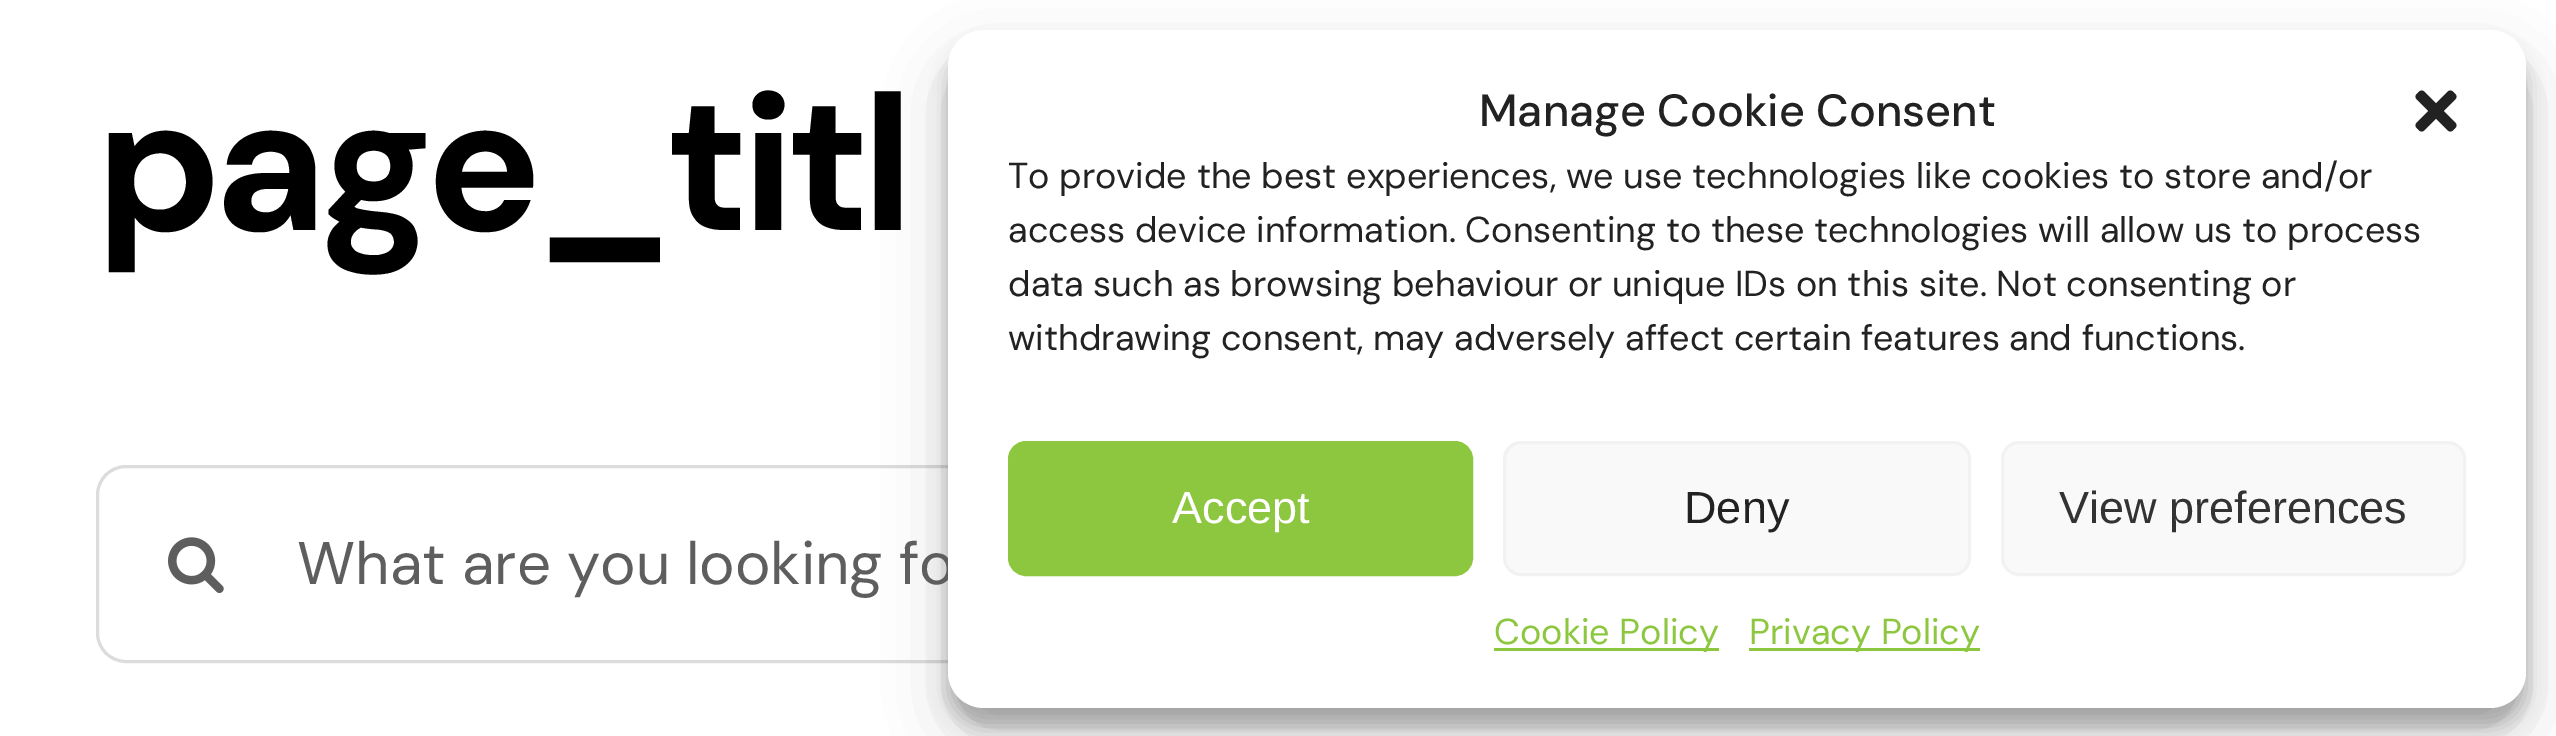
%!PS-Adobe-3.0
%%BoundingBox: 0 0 2556 736
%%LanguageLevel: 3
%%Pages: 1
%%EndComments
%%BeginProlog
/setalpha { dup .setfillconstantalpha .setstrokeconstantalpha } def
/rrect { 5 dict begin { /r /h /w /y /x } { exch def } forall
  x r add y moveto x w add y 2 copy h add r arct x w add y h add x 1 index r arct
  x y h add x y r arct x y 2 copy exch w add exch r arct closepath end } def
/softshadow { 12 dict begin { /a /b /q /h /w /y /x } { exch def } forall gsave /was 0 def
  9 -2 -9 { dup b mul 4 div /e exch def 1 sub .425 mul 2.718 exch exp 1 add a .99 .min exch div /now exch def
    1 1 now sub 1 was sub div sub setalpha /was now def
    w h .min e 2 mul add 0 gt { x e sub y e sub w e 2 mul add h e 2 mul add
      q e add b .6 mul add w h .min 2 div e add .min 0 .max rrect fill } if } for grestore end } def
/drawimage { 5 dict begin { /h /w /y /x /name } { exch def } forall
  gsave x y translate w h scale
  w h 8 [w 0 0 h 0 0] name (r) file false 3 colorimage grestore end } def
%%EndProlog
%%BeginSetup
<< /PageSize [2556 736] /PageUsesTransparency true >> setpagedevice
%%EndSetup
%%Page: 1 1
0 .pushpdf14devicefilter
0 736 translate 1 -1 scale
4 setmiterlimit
1 setgray
0 0 2556 736 rectfill
0.863 setgray
3 setlinewidth
97.5 466.5 2361 195 28.5 rrect stroke
(images/1.raw) 168 537 56 56 drawimage
0 setgray
948 48 1578 678 36 9 0.23 softshadow
948 60 1578 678 36 30 0.19 softshadow
/DMSans-Bold [193 0 0 -193 0 0] selectfont
96 230 moveto -8 0 (page_titl) ashow
/DMSans-Regular [60 0 0 -60 0 0] selectfont
0.369 setgray
297 584 moveto (What are you looking fo) show
1 setgray
948 30 1578 678 36 rrect fill
/DMSans-Medium [45 0 0 -45 0 0] selectfont
0.133 setgray
1479 126 moveto (Manage Cookie Consent) show
(images/2.raw) 2415 90 42 42 drawimage
/DMSans-Regular [36 0 0 -36 0 0] selectfont
1008 188 moveto (To provide the best experiences, we use technologies like cookies to store and/or) show
1008 242 moveto (access device information. Consenting to these technologies will allow us to process) show
1008 296 moveto (data such as browsing behaviour or unique IDs on this site. Not consenting or) show
1008 350 moveto (withdrawing consent, may adversely affect certain features and functions.) show
0.553 0.776 0.247 setrgbcolor
1009.5 442.5 462 132 16.5 rrect gsave fill grestore
stroke
/LiberationSans-Regular [45 0 0 -45 0 0] selectfont
1 setgray
1172 523 moveto (Accept) show
0.976 setgray
1504.5 442.5 465 132 16.5 rrect gsave fill grestore
0.949 setgray
stroke
0.133 setgray
1684 523 moveto (Deny) show
0.976 setgray
2002.5 442.5 462 132 16.5 rrect gsave fill grestore
0.949 setgray
stroke
0.2 setgray
2059 523 moveto (View preferences) show
0.553 0.776 0.247 setrgbcolor
1494 648 225 3 rectfill
/DMSans-Regular [36 0 0 -36 0 0] selectfont
1494 644 moveto (Cookie Policy) show
1749 648 231 3 rectfill
1749 644 moveto (Privacy Policy) show
.poppdf14devicefilter showpage
%%EOF
